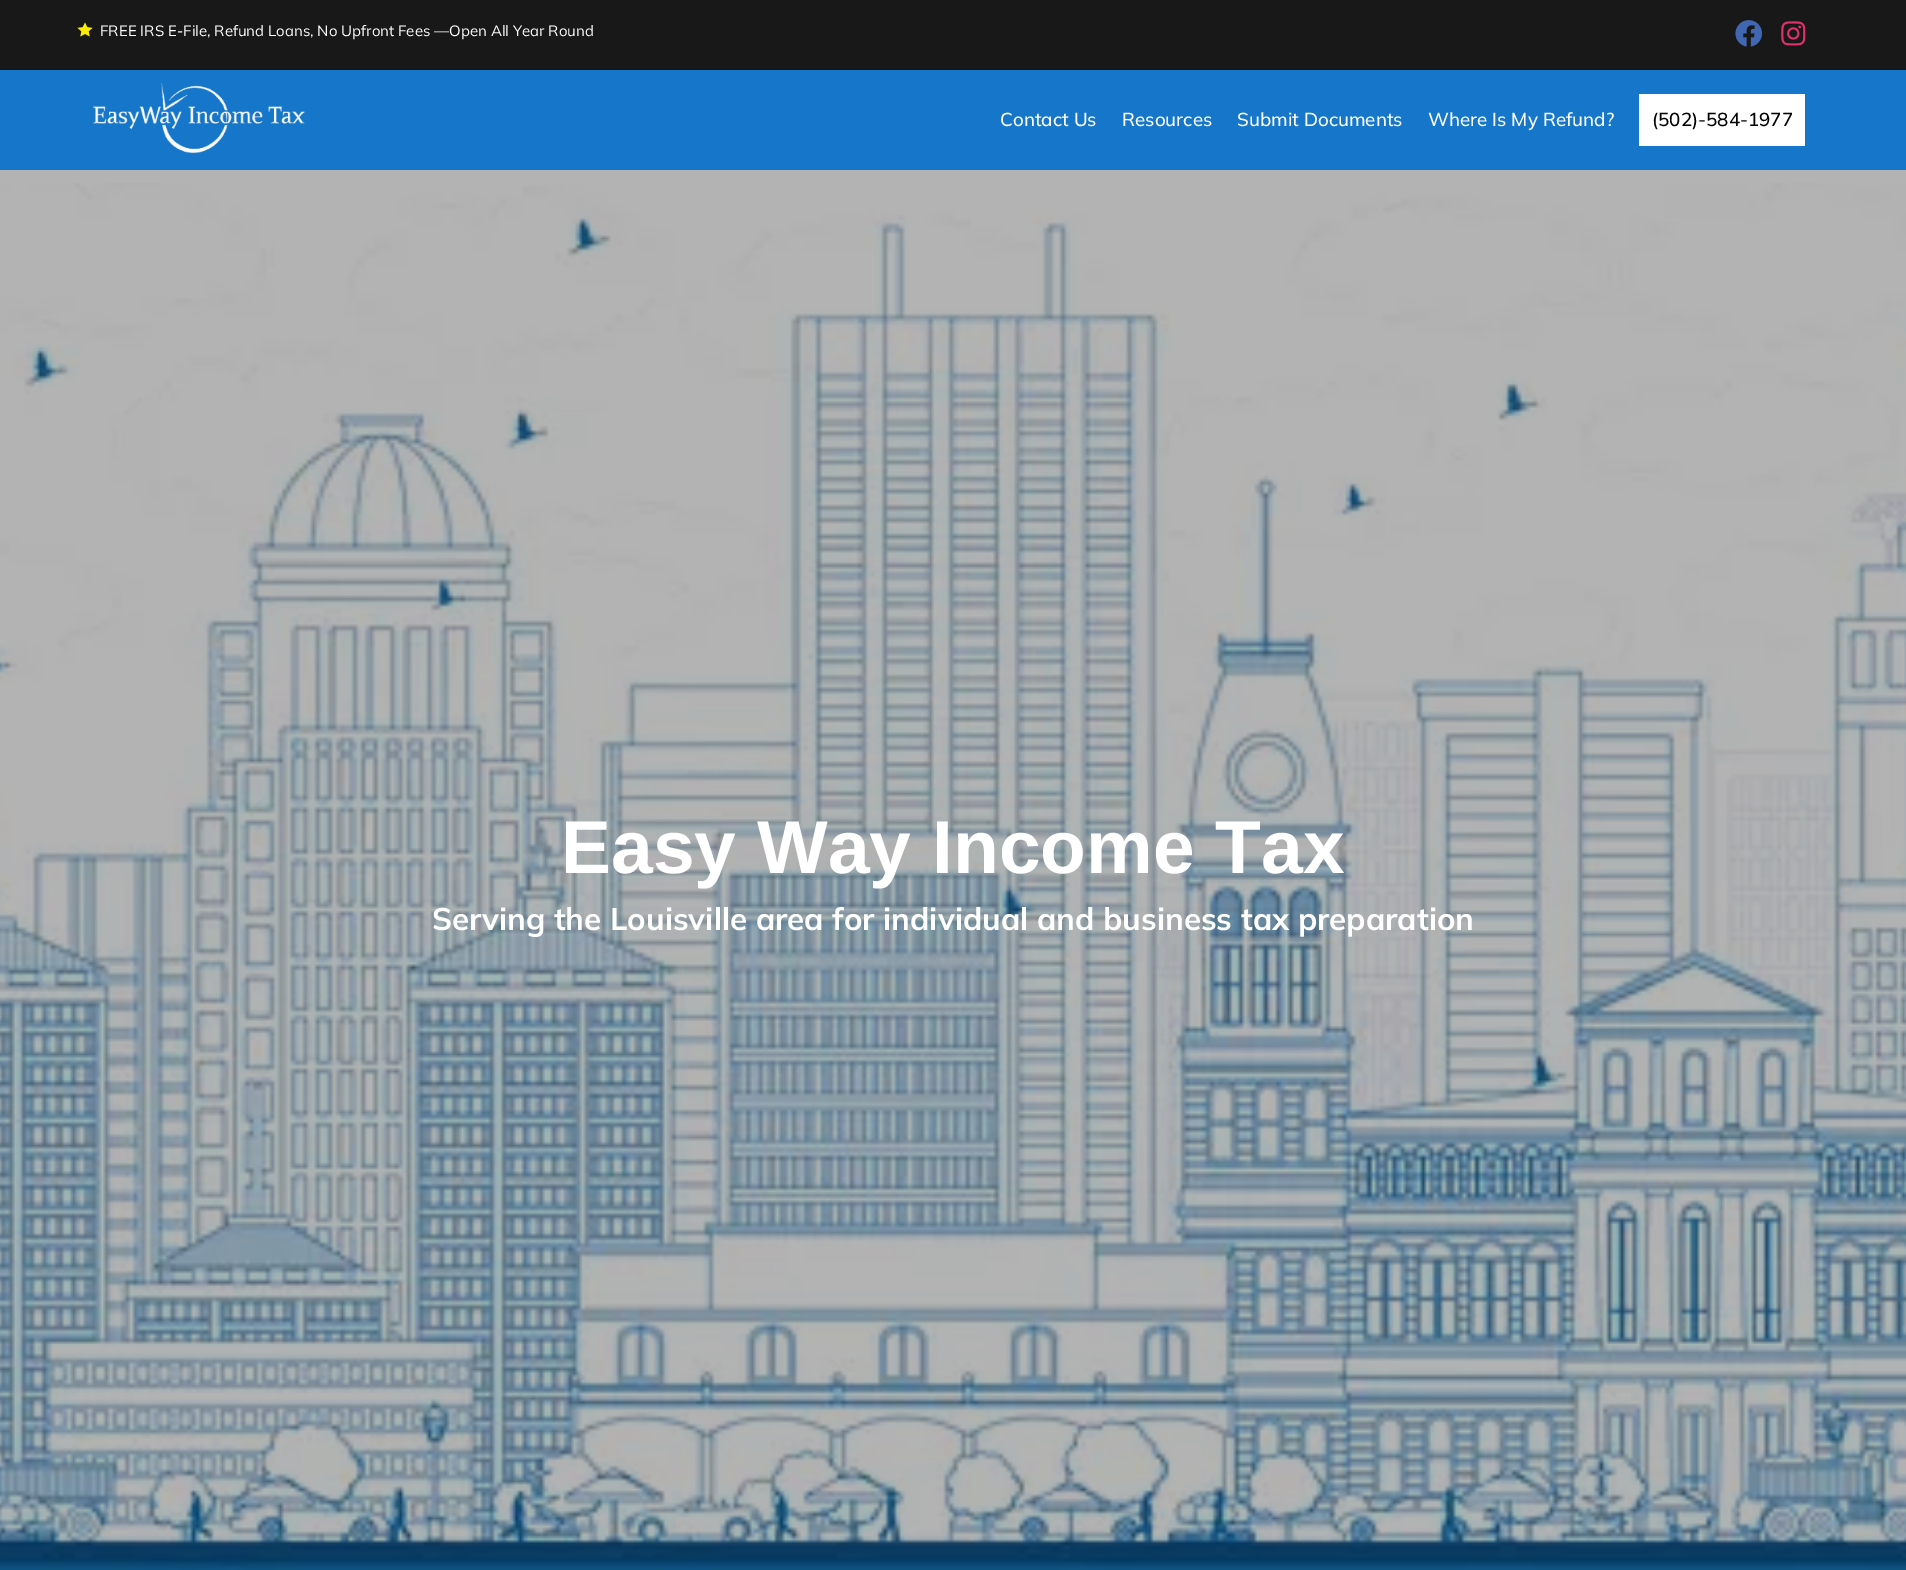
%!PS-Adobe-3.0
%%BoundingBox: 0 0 1906 1570
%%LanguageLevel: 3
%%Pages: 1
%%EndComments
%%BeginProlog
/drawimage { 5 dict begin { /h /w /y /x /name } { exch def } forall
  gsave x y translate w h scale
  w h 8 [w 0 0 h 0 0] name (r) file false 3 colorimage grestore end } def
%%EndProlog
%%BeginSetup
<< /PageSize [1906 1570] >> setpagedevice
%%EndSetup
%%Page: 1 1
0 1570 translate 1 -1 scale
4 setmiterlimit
0.702 setgray
0 0 1906 1570 rectfill
0.094 setgray
0 0 1906 70 rectfill
(images/1.raw) 77 22 16 15 drawimage
(images/2.raw) 1735 20 28 27 drawimage
(images/3.raw) 1781 21 25 25 drawimage
0.086 0.467 0.792 setrgbcolor
0 70 1906 100 rectfill
(images/4.raw) 93 82 212 72 drawimage
1 setgray
1639 94 166 52 rectfill
(images/5.raw) 0 183 1906 1387 drawimage
/Mulish-Regular [15 0 0 -15 0 0] selectfont
100 36 moveto (FREE IRS E-File, Refund Loans, No Upfront Fees —Open All Year Round) show
/Mulish-Medium [18.75 0 0 -18.75 0 0] selectfont
1000 126 moveto (Contact Us) show
1122 126 moveto (Resources) show
1237 126 moveto (Submit Documents) show
1428 126 moveto (Where Is My Refund?) show
0 setgray
1652 126 moveto (\(502\)-584-1977) show
/LiberationSans-Bold [75 0 0 -75 0 0] selectfont
1 setgray
561 873 moveto (Easy Way Income Tax) show
/Mulish-Bold [31.25 0 0 -31.25 0 0] selectfont
432 930 moveto (Serving the Louisville area for individual and business tax preparation) show
showpage
%%EOF
